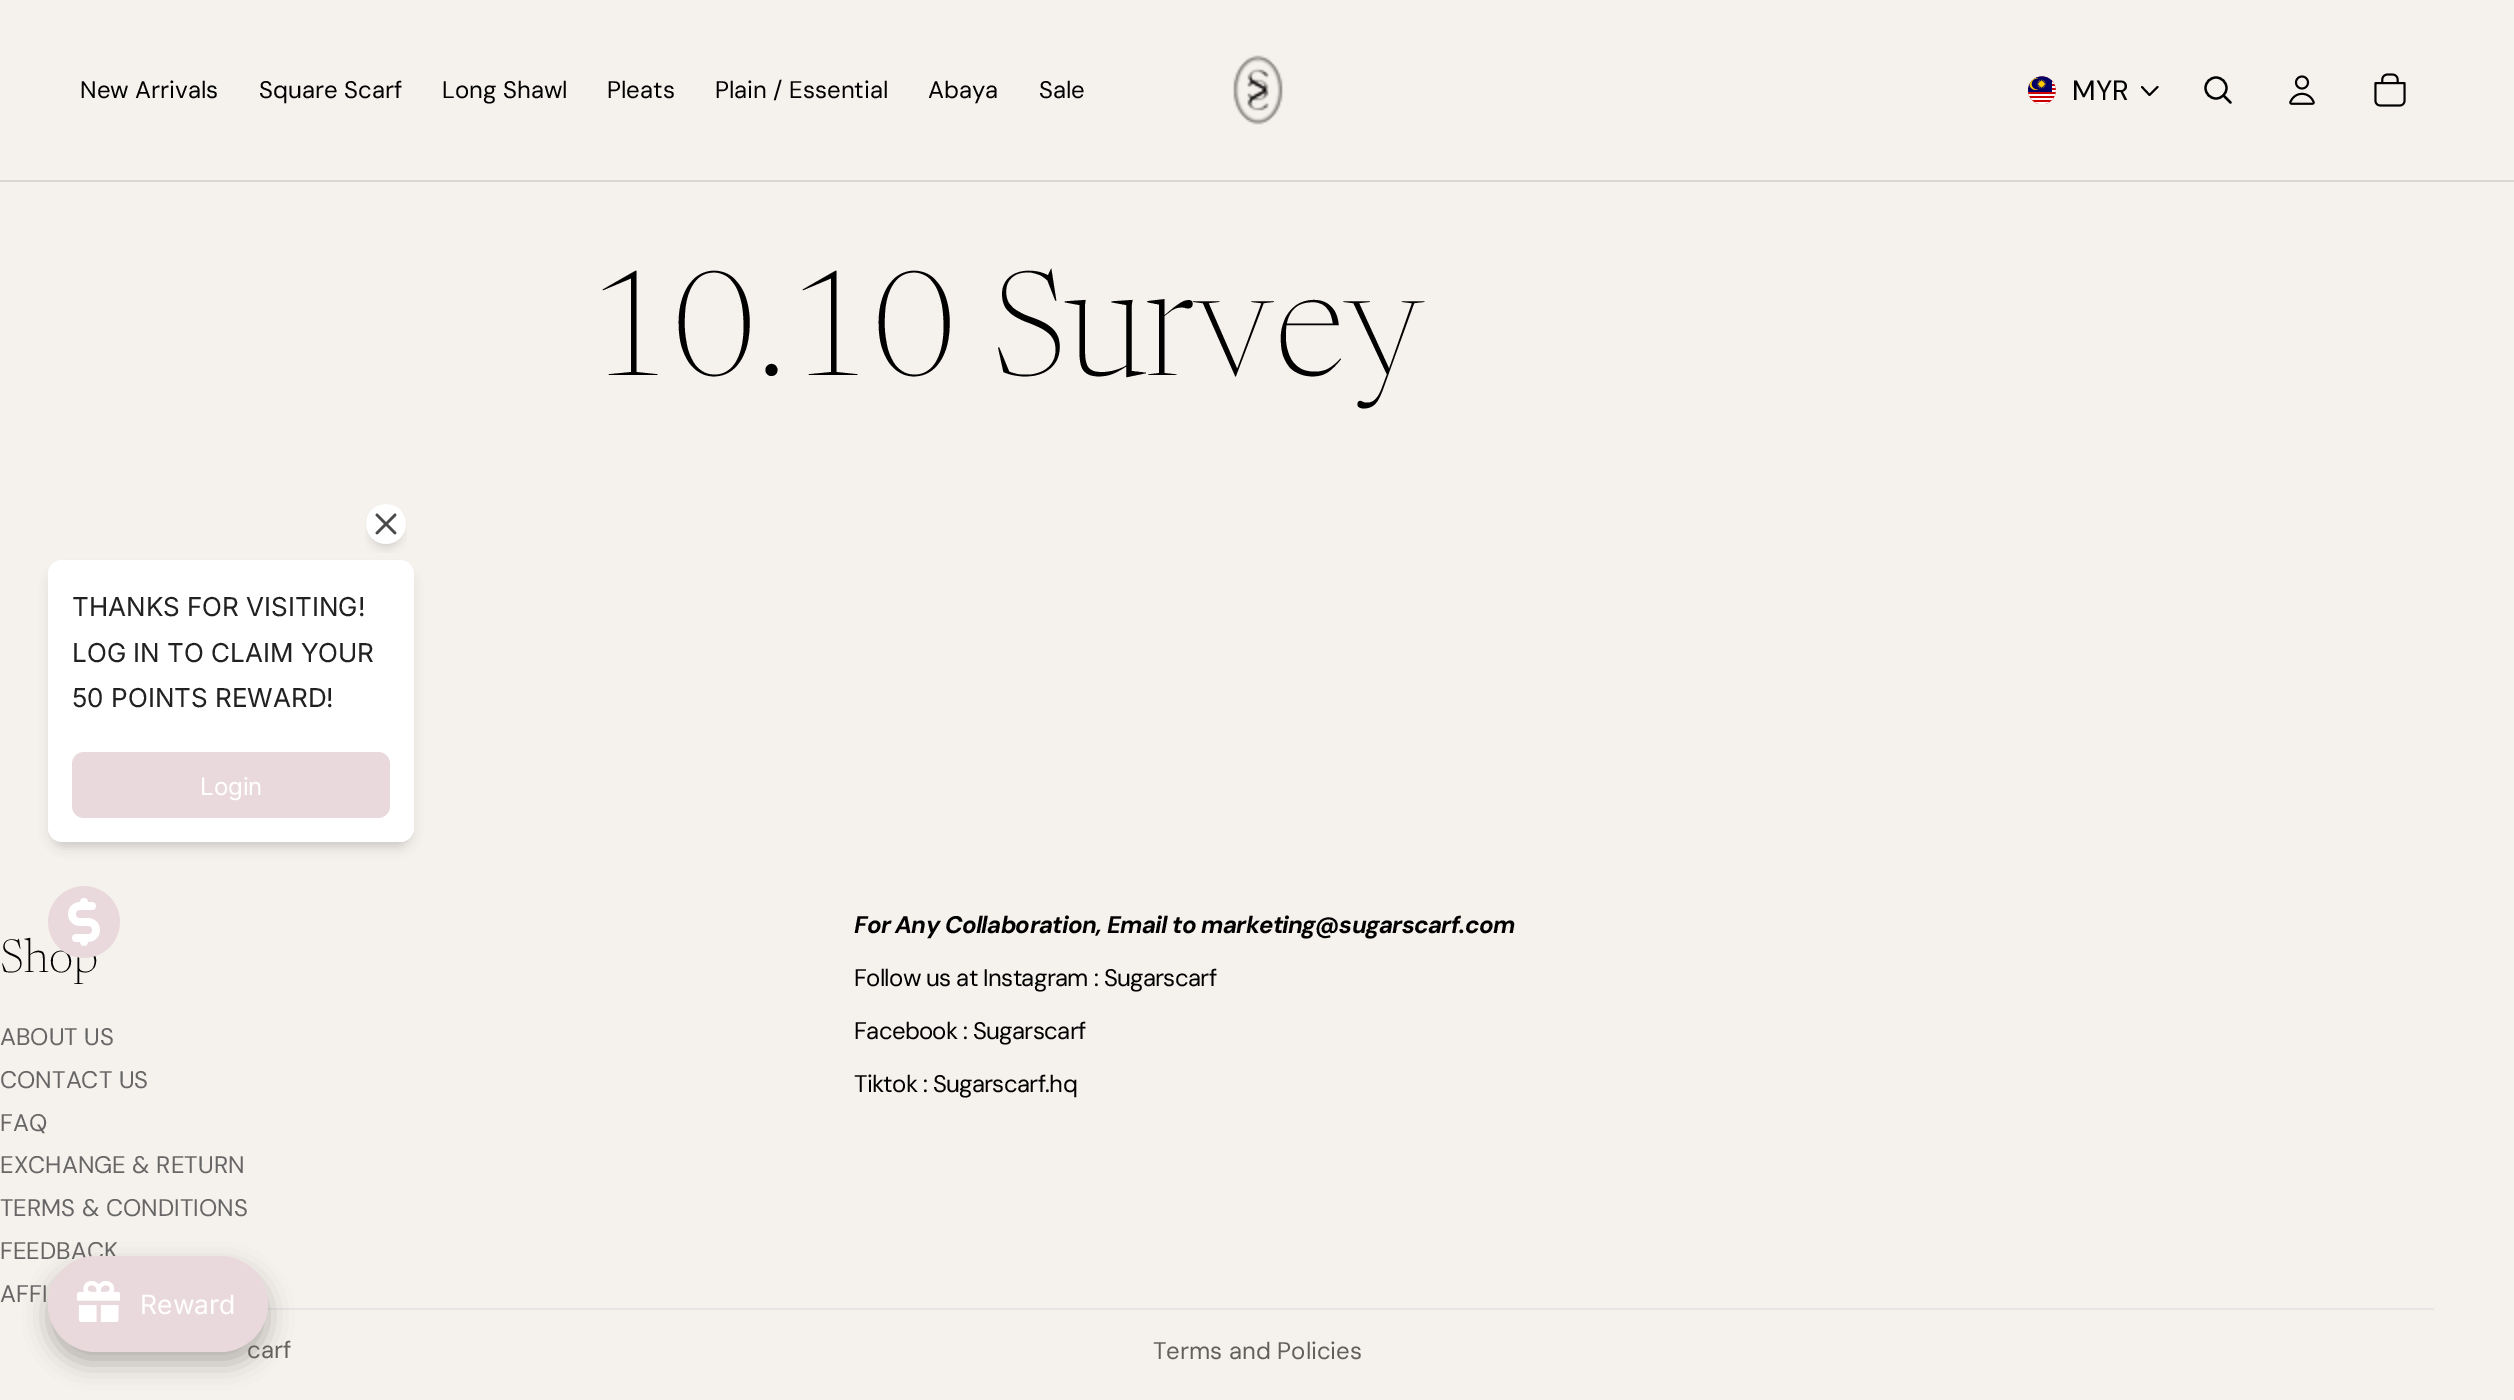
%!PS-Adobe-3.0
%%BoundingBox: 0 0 2514 1400
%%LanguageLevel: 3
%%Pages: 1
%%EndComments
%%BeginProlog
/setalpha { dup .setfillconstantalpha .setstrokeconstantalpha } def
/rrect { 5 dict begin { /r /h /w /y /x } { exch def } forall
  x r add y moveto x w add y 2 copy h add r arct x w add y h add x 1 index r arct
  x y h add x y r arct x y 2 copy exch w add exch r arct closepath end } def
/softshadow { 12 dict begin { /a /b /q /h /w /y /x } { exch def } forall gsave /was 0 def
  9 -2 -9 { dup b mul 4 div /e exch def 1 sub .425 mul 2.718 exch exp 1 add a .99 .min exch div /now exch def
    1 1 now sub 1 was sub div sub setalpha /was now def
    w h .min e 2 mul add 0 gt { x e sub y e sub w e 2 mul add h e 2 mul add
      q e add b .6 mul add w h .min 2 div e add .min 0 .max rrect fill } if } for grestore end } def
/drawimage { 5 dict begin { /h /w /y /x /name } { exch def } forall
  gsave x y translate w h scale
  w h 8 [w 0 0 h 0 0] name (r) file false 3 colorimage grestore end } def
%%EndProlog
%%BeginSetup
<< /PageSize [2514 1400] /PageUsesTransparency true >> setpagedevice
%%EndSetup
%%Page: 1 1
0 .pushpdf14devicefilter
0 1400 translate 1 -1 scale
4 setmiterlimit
0.961 0.945 0.925 setrgbcolor
0 0 2514 1400 rectfill
0.855 0.839 0.824 setrgbcolor
0 180 2514 2 rectfill
(images/1.raw) 1233 55 50 70 drawimage
(images/2.raw) 2028 76 28 28 drawimage
0 setgray
1.9 setlinewidth
1 setlinecap
1 setlinejoin
newpath 2157.5 87 moveto 2149.5 95 lineto 2142 87 lineto stroke
2.2 setlinewidth
0 setlinecap
0 setlinejoin
newpath 2216 88 10.5 0 360 arc closepath stroke
1 setlinecap
1 setlinejoin
newpath 2223.5 95.5 moveto 2230.5 102.5 lineto stroke
(images/3.raw) 2289 75 26 30 drawimage
(images/4.raw) 2374 73 32 34 drawimage
0.102 setgray
52 572 358 274 12 6 0.2 softshadow
(images/5.raw) 365 504 42 49 drawimage
1 setgray
48 560 366 282 14 rrect fill
0.918 0.851 0.863 setrgbcolor
72 752 318 66 12 rrect fill
0.902 setgray
267 1308 2167 2 rectfill
0 setgray
48 1268 220 96 48 12 0.25 softshadow
/DMSans-Regular [24 0 0 -24 0 0] selectfont
80 98 moveto (New Arrivals) show
259 98 moveto (Square Scarf) show
442 98 moveto (Long Shawl) show
607 98 moveto (Pleats) show
715 98 moveto (Plain / Essential) show
928 98 moveto (Abaya) show
1039 98 moveto (Sale) show
/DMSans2-Regular [28 0 0 -28 0 0] selectfont
2072 100 moveto (MYR) show
/Newsreader-ExtraLight [144 0 0 -144 0 0] selectfont
585 375 moveto (10.10 Survey) show
/Inter-Regular [26 0 0 -26 0 0] selectfont
0.129 setgray
72 616 moveto (THANKS FOR VISITING!) show
72 662 moveto (LOG IN TO CLAIM YOUR) show
72 707 moveto (50 POINTS REWARD!) show
/Inter-Regular [24 0 0 -24 0 0] selectfont
1 setgray
200 795 moveto (Login) show
/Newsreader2-ExtraLight [48 0 0 -48 0 0] selectfont
0 setgray
0 972 moveto (Shop) show
(images/6.raw) 48 886 72 72 drawimage
/DMSans-Regular [24 0 0 -24 0 0] selectfont
0.4 setgray
0 1045 moveto (ABOUT US) show
0 1088 moveto (CONTACT US) show
0 1131 moveto (FAQ) show
0 1173 moveto (EXCHANGE & RETURN) show
0 1216 moveto (TERMS & CONDITIONS) show
0 1259 moveto (FEEDBACK) show
0 1302 moveto (AFFI) show
/DMSans-BoldItalic [24 0 0 -24 0 0] selectfont
0 setgray
854 933 moveto -0.72 0 (For Any Collaboration, Email to marketing@sugarscarf.com) ashow
/DMSans-Regular [24 0 0 -24 0 0] selectfont
854 986 moveto -0.72 0 (Follow us at Instagram : Sugarscarf) ashow
854 1039 moveto -0.72 0 (Facebook : Sugarscarf) ashow
854 1092 moveto -0.72 0 (Tiktok : Sugarscarf.hq) ashow
0.384 0.376 0.369 setrgbcolor
247 1358 moveto (carf) show
0.918 0.851 0.863 setrgbcolor
48 1256 220 96 48 rrect fill
(images/7.raw) 77 1281 43 41 drawimage
/Inter-Regular [26.5 0 0 -26.5 0 0] selectfont
1 setgray
140 1314 moveto (Reward) show
/DMSans-Regular [24 0 0 -24 0 0] selectfont
0.384 0.376 0.369 setrgbcolor
1153 1359 moveto (Terms and Policies) show
.poppdf14devicefilter showpage
%%EOF
